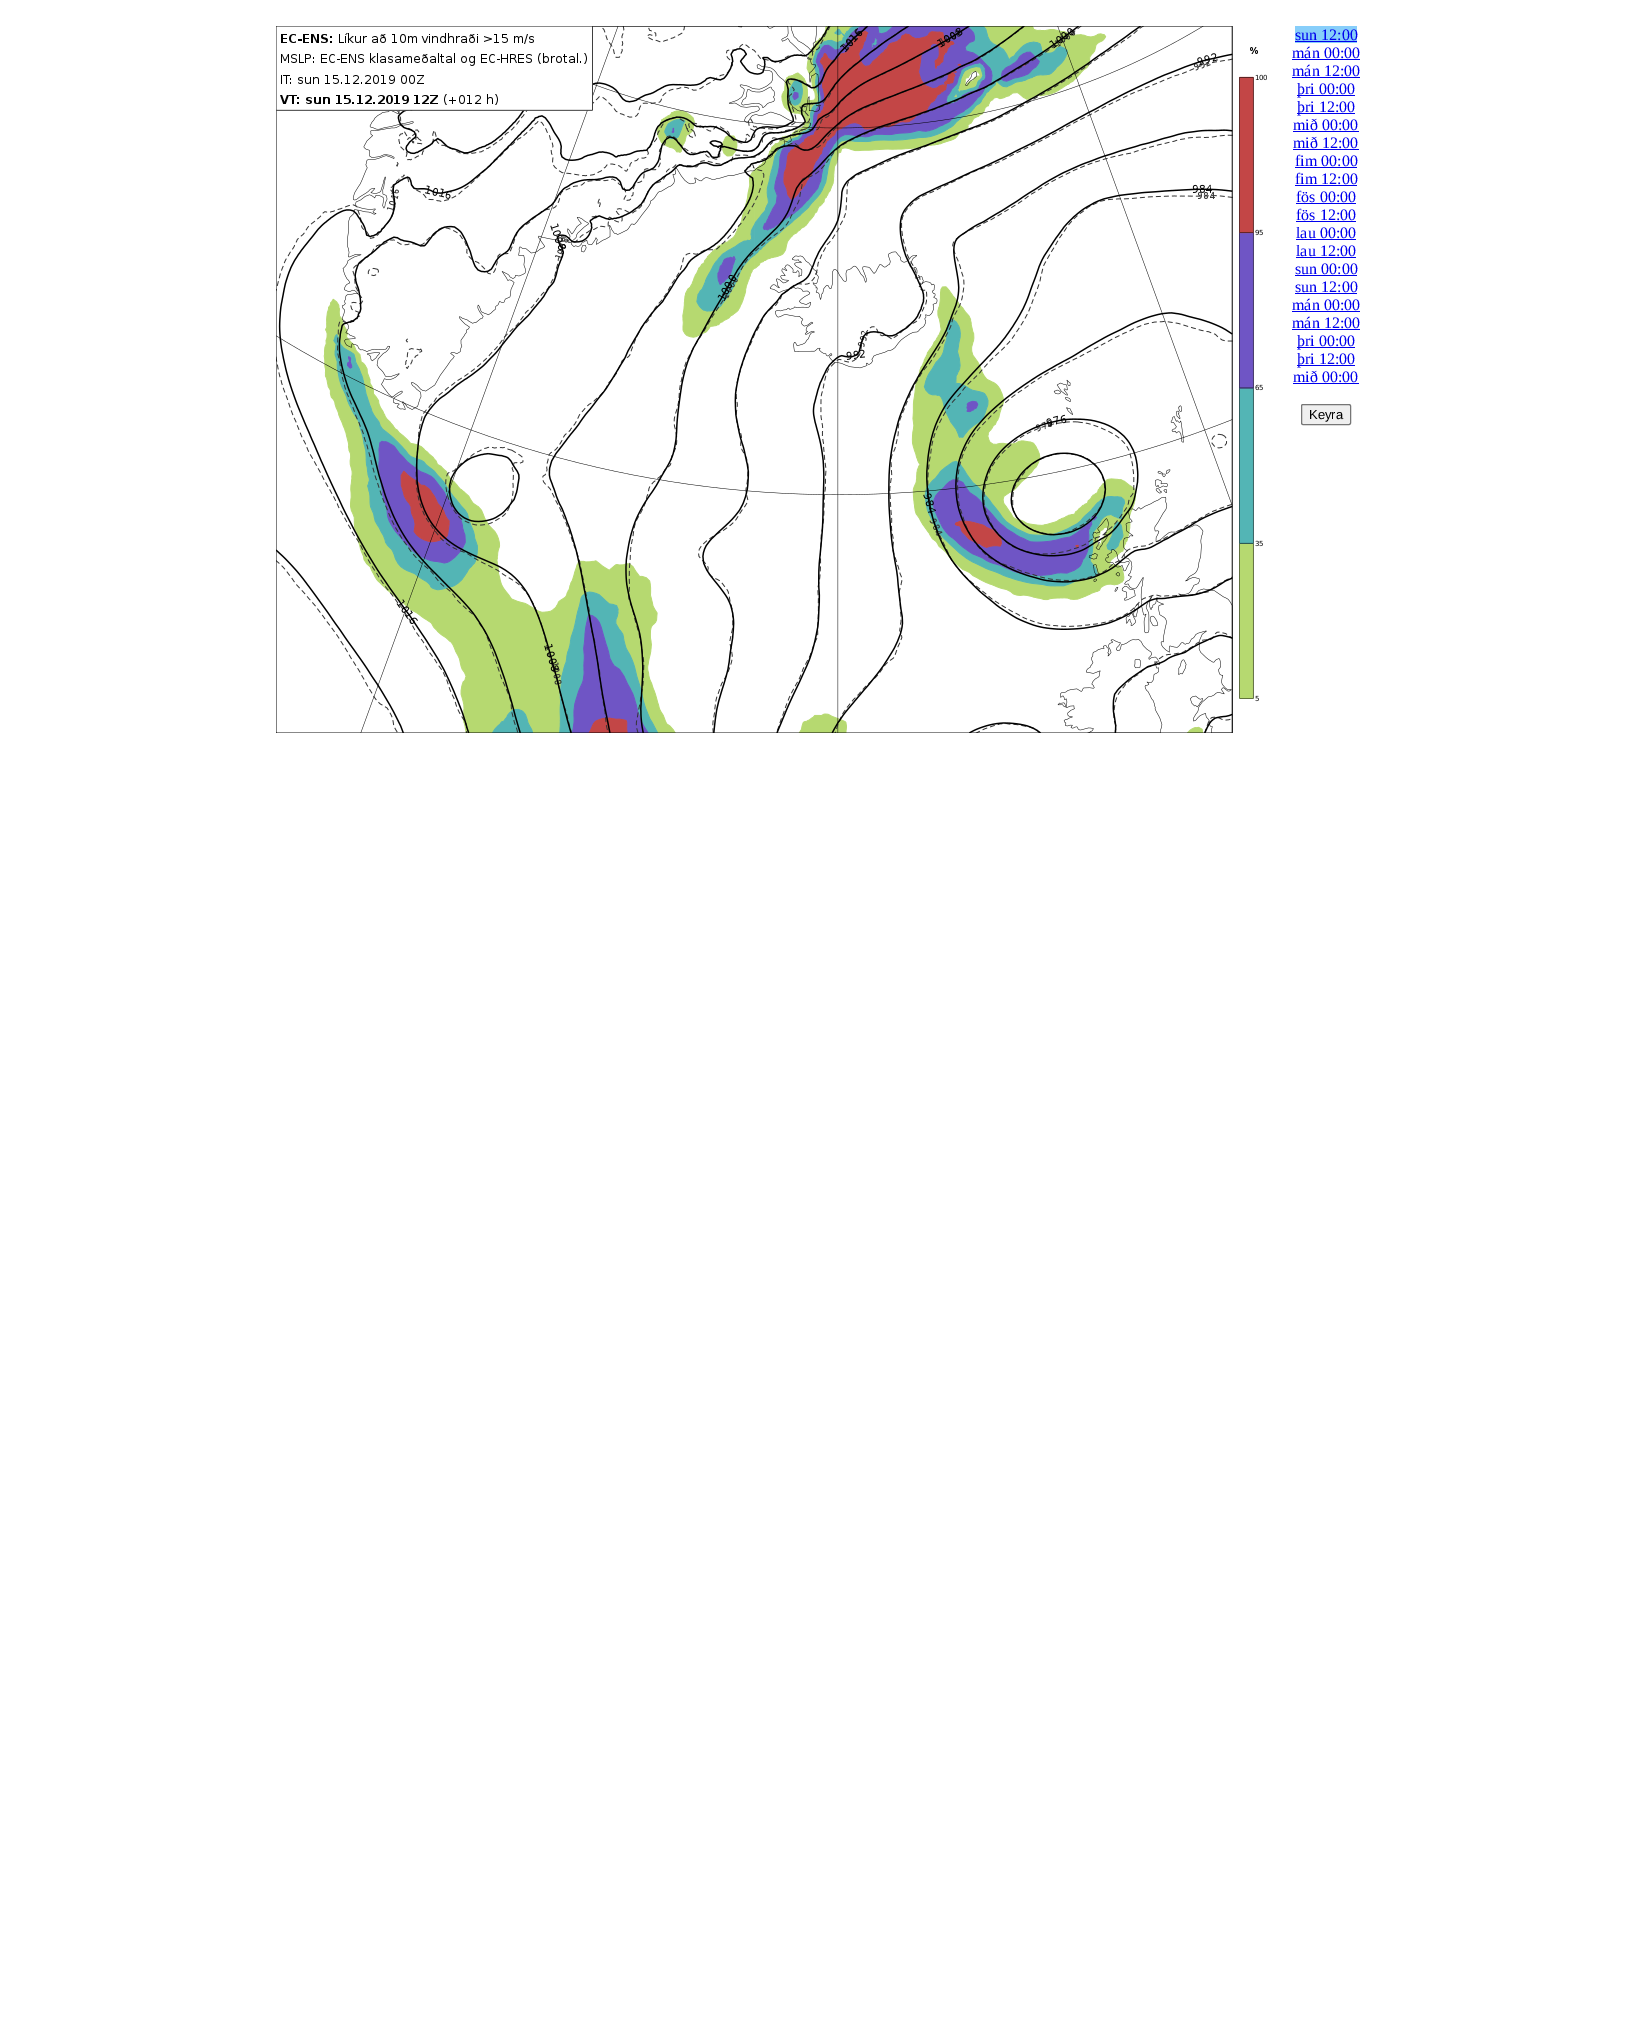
%!PS-Adobe-3.0
%%BoundingBox: 0 0 1652 2035
%%LanguageLevel: 3
%%Pages: 1
%%EndComments
%%BeginProlog
/rrect { 5 dict begin { /r /h /w /y /x } { exch def } forall
  x r add y moveto x w add y 2 copy h add r arct x w add y h add x 1 index r arct
  x y h add x y r arct x y 2 copy exch w add exch r arct closepath end } def
/drawimage { 5 dict begin { /h /w /y /x /name } { exch def } forall
  gsave x y translate w h scale
  w h 8 [w 0 0 h 0 0] name (r) file false 3 colorimage grestore end } def
%%EndProlog
%%BeginSetup
<< /PageSize [1652 2035] >> setpagedevice
%%EndSetup
%%Page: 1 1
0 2035 translate 1 -1 scale
4 setmiterlimit
1 setgray
0 0 1652 2035 rectfill
(images/1.raw) 276 26 991 707 drawimage
0.529 0.808 0.98 setrgbcolor
1295 26 62 17 rectfill
0 0 0.933 setrgbcolor
1295 41 62 1 rectfill
1292 59 68 1 rectfill
1292 77 68 1 rectfill
1297 95 58 1 rectfill
1297 113 58 1 rectfill
1293 131 66 1 rectfill
1293 149 66 1 rectfill
1295 167 62 1 rectfill
1295 185 62 1 rectfill
1296 203 60 1 rectfill
1296 221 60 1 rectfill
1296 239 60 1 rectfill
1296 257 60 1 rectfill
1295 275 62 1 rectfill
1295 293 62 1 rectfill
1292 311 68 1 rectfill
1292 329 68 1 rectfill
1297 347 58 1 rectfill
1297 365 58 1 rectfill
1293 383 66 1 rectfill
0.937 setgray
1301.5 404.5 49 20 1.5 rrect gsave fill grestore
0.463 setgray
stroke
/LiberationSerif-Regular [16 0 0 -16 0 0] selectfont
0 0 0.933 setrgbcolor
1295 40 moveto (sun 12:00) show
1292 58 moveto (mán 00:00) show
1292 76 moveto (mán 12:00) show
1297 94 moveto (þri 00:00) show
1297 112 moveto (þri 12:00) show
1293 130 moveto (mið 00:00) show
1293 148 moveto (mið 12:00) show
1295 166 moveto (fim 00:00) show
1295 184 moveto (fim 12:00) show
1296 202 moveto (fös 00:00) show
1296 220 moveto (fös 12:00) show
1296 238 moveto (lau 00:00) show
1296 256 moveto (lau 12:00) show
1295 274 moveto (sun 00:00) show
1295 292 moveto (sun 12:00) show
1292 310 moveto (mán 00:00) show
1292 328 moveto (mán 12:00) show
1297 346 moveto (þri 00:00) show
1297 364 moveto (þri 12:00) show
1293 382 moveto (mið 00:00) show
/LiberationSans-Regular [13 0 0 -13 0 0] selectfont
0 setgray
1309 419 moveto (Keyra) show
showpage
%%EOF
